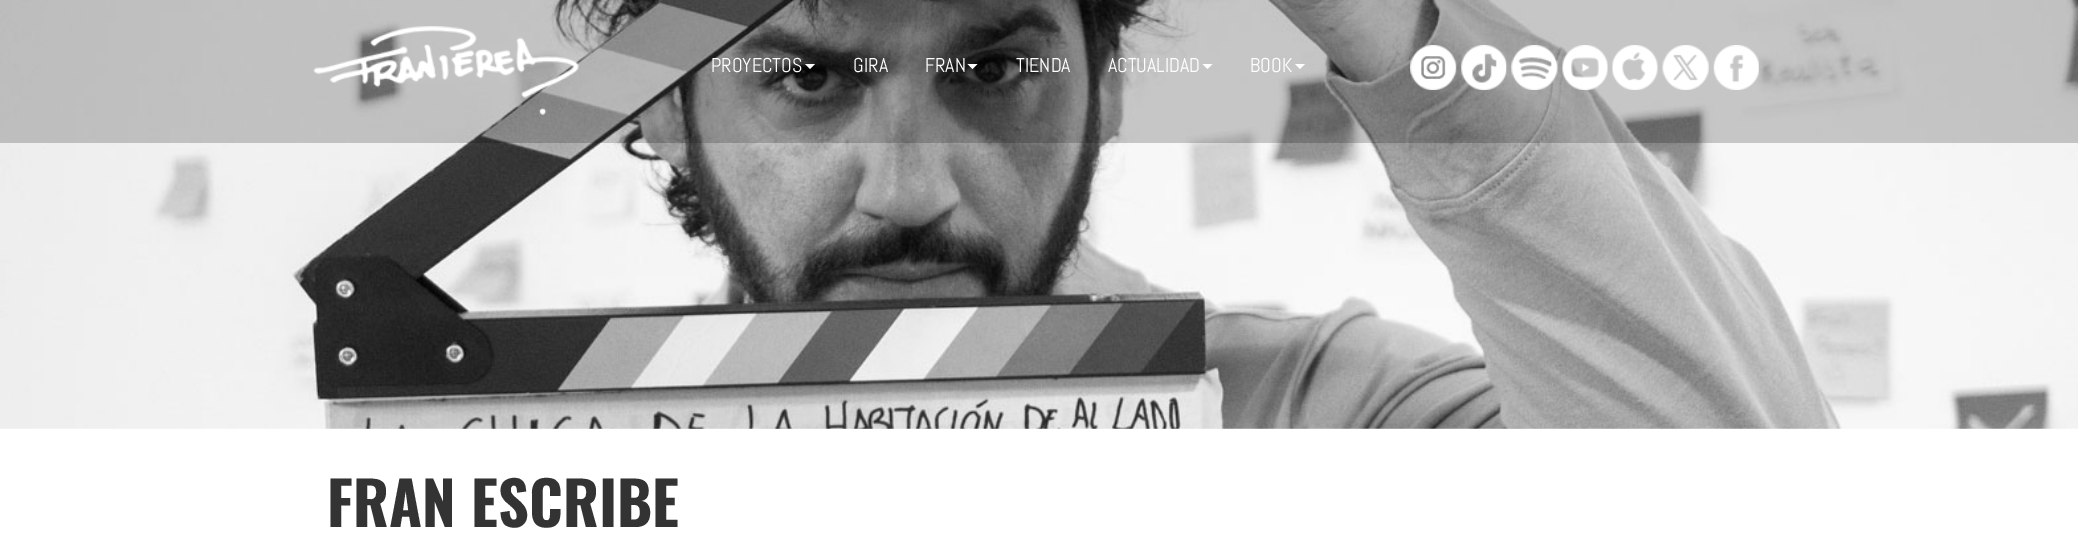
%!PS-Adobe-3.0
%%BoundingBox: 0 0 2078 558
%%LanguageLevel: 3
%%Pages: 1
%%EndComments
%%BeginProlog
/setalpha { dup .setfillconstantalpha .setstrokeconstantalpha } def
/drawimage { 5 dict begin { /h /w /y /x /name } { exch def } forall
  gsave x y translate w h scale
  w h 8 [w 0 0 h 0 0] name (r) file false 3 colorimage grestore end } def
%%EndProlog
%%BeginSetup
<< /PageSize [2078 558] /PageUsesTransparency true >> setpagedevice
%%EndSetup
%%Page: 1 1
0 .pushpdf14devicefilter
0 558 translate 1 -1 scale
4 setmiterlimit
1 setgray
0 0 2078 558 rectfill
(images/1.raw) 0 0 2078 429 drawimage
0.2 setalpha
0 setgray
0 0 2078 143 rectfill
1 setalpha
(images/2.raw) 313 26 266 89 drawimage
1 setgray
newpath 805 64 moveto 815 64 lineto 810 69 lineto closepath fill
newpath 967.5 64 moveto 977.5 64 lineto 972.5 69 lineto closepath fill
newpath 1202.5 64 moveto 1212.5 64 lineto 1207.5 69 lineto closepath fill
newpath 1295 64 moveto 1305 64 lineto 1300 69 lineto closepath fill
(images/3.raw) 1410 45 47 45 drawimage
(images/4.raw) 1461 45 46 45 drawimage
(images/5.raw) 1511 45 47 45 drawimage
(images/6.raw) 1562 45 46 45 drawimage
(images/7.raw) 1612 45 46 45 drawimage
(images/8.raw) 1662 45 47 45 drawimage
(images/9.raw) 1713 45 46 45 drawimage
/Abel-Regular [20 0 0 -20 0 0] selectfont
711 72 moveto (PROYECTOS) show
853 72 moveto (GIRA) show
925 72 moveto (FRAN) show
1016 72 moveto (TIENDA) show
1108 72 moveto (ACTUALIDAD) show
1250 72 moveto (BOOK) show
/Oswald-Bold [60 0 0 -60 0 0] selectfont
0.2 setgray
327 527 moveto (FRAN ESCRIBE) show
.poppdf14devicefilter showpage
%%EOF
